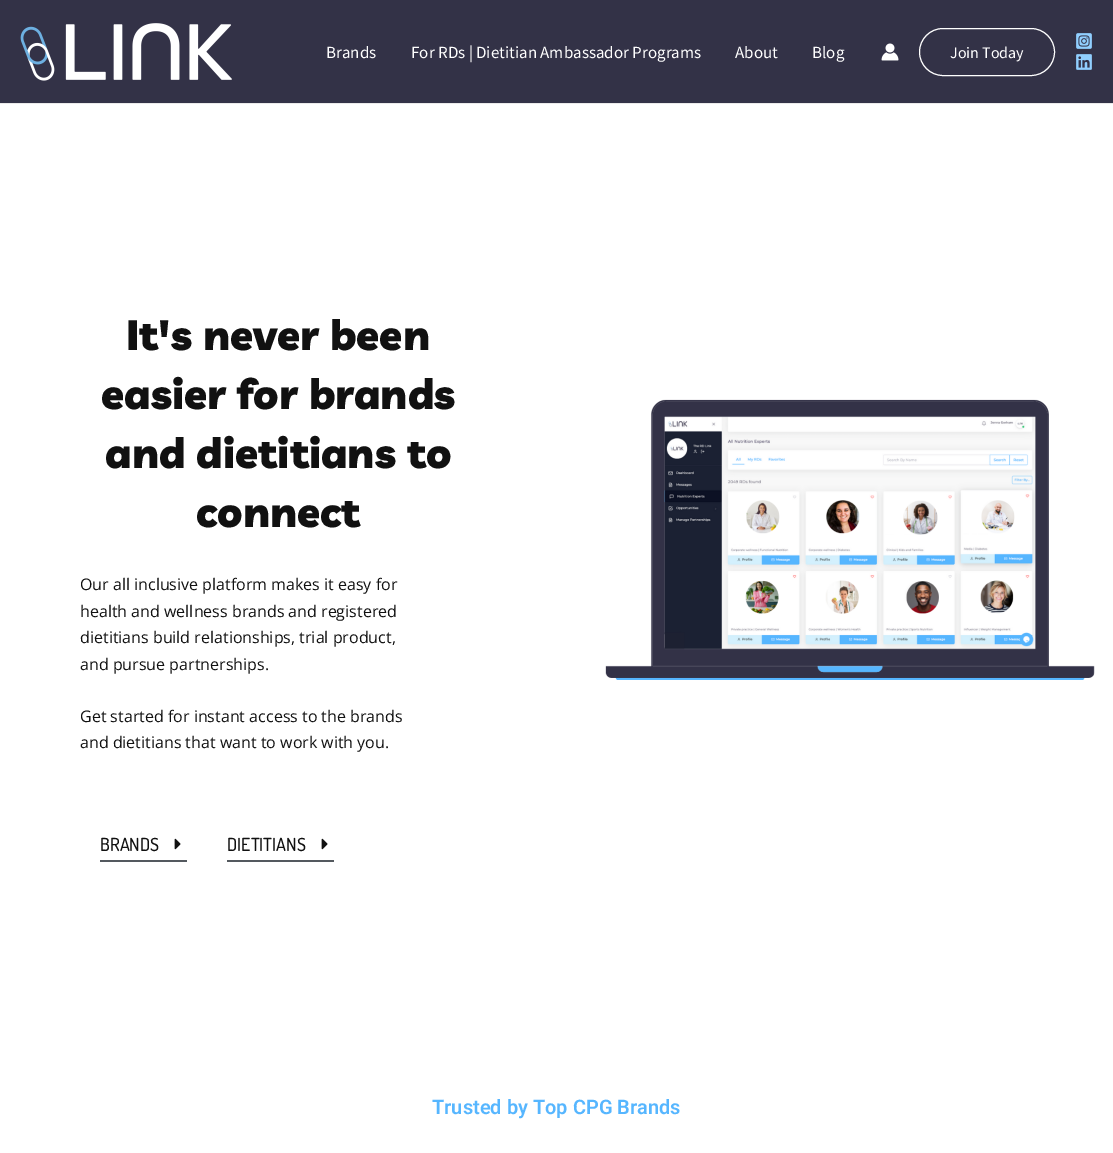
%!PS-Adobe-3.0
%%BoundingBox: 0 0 1113 1153
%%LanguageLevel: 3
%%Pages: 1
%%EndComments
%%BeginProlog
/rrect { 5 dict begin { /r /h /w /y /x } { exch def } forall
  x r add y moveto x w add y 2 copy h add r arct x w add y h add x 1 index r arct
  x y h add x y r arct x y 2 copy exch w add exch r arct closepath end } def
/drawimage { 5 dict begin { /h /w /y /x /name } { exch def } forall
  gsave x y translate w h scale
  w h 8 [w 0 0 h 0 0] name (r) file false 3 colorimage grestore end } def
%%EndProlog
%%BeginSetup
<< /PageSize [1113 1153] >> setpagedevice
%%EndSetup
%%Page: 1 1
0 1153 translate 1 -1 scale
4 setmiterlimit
1 setgray
0 0 1113 1153 rectfill
0.2 0.196 0.278 setrgbcolor
0 0 1113 103 rectfill
0.918 setgray
0 103 1113 1 rectfill
(images/1.raw) 20 23 212 58 drawimage
(images/2.raw) 881 43 18 18 drawimage
1 setgray
919.5 28.5 135 47 23.5 rrect stroke
(images/3.raw) 1076 33 16 16 drawimage
(images/4.raw) 1076 54 16 16 drawimage
0.329 0.349 0.373 setrgbcolor
100 860 87 2 rectfill
(images/5.raw) 174 838 7 12 drawimage
227 860 107 2 rectfill
(images/5.raw) 321 838 7 12 drawimage
(images/6.raw) 605 399 490 281 drawimage
/SourceSansPro-Regular [17 0 0 -17 0 0] selectfont
1 setgray
326 58 moveto (Brands) show
411 58 moveto (For RDs | Dietitian Ambassador Programs) show
735 58 moveto (About) show
812 58 moveto (Blog) show
/SourceSansPro-Regular [16 0 0 -16 0 0] selectfont
950 58 moveto (Join Today) show
/Livvic-Black [42 0 0 -42 0 0] selectfont
0.067 setgray
126 350 moveto (It's never been) show
101 409 moveto (easier for brands) show
105 468 moveto (and dietitians to) show
196 527 moveto (connect) show
/OpenSans-Regular [16 0 0 -16 0 0] selectfont
80 590 moveto (Our all inclusive platform makes it easy for) show
80 617 moveto (health and wellness brands and registered) show
80 643 moveto (dietitians build relationships, trial product,) show
80 670 moveto (and pursue partnerships.) show
80 722 moveto (Get started for instant access to the brands) show
80 748 moveto (and dietitians that want to work with you.) show
/Dosis-Medium [18 0 0 -18 0 0] selectfont
100 851 moveto (BRANDS) show
227 851 moveto (DIETITIANS) show
/Roboto-SemiBold [20 0 0 -20 0 0] selectfont
0.337 0.714 1 setrgbcolor
432 1114 moveto (Trusted by Top CPG Brands) show
showpage
%%EOF
